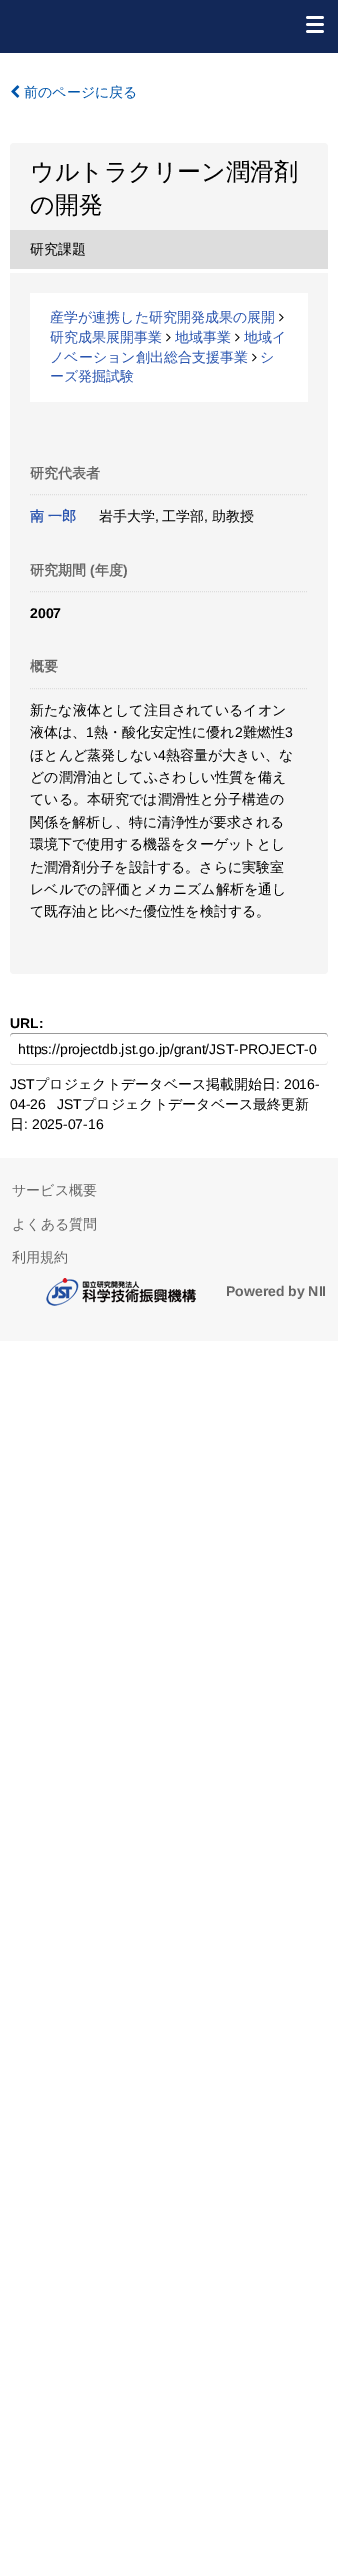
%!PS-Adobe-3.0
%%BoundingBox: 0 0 338 2561
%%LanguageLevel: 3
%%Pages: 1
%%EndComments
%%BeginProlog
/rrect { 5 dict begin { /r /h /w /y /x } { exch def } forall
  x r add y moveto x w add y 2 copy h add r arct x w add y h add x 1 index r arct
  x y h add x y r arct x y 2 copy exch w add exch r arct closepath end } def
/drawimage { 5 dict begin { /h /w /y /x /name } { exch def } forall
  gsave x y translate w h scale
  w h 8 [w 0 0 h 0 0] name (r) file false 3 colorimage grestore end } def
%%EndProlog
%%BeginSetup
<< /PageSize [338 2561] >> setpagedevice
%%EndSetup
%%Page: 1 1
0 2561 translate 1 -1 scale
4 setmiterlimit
1 setgray
0 0 338 2561 rectfill
0.071 0.157 0.345 setrgbcolor
0 0 338 53 rectfill
(images/1.raw) 306 16 18 17 drawimage
(images/2.raw) 11 85 9 13 drawimage
0.961 setgray
10 143 318 831 4 rrect fill
0.867 setgray
10 230 318 39 rectfill
1 setgray
10 269 318 4 rectfill
30 293 278 109 rectfill
(images/3.raw) 279 313 5 9 drawimage
(images/3.raw) 166 333 5 9 drawimage
(images/3.raw) 235 333 5 9 drawimage
(images/3.raw) 252 353 5 9 drawimage
0.867 setgray
[1 1] 0 setdash
newpath 30 494.5 moveto 308 494.5 lineto stroke
newpath 30 591.5 moveto 308 591.5 lineto stroke
newpath 30 688.5 moveto 308 688.5 lineto stroke
0.902 setgray
newpath 10 1061 moveto 10 1063 11 1065 13 1065 curveto 326 1065 lineto 327 1064 lineto 328 1061 lineto 328 1063 327 1064 325 1064 curveto 13 1064 lineto 11 1064 10 1063 10 1061 curveto closepath fill
0.6 setgray
newpath 13 1034 moveto 325 1034 lineto 327 1034 328 1035 328 1037 curveto 327 1034 lineto 326 1033 lineto 13 1033 lineto 11 1033 10 1035 10 1037 curveto 10 1035 11 1034 13 1034 curveto closepath fill
0.969 setgray
0 1158 338 183 rectfill
(images/4.raw) 46 1278 150 28 drawimage
/WenQuanYiZenHei-Medium [14 0 0 -14 0 0] selectfont
0 0.333 0.667 setrgbcolor
24 97 moveto (前のページに戻る) show
/WenQuanYiZenHei-Medium [24 0 0 -24 0 0] selectfont
0 setgray
30 180 moveto (ウルトラクリーン潤滑剤) show
30 213 moveto (の開発) show
/WenQuanYiZenHei-Medium [14 0 0 -14 0 0] selectfont
30 254 moveto (研究課題) show
0.161 0.329 0.686 setrgbcolor
50 322 moveto (産学が連携した研究開発成果の展開) show
50 342 moveto (研究成果展開事業) show
175 342 moveto (地域事業) show
244 342 moveto (地域イ) show
50 362 moveto (ノベーション創出総合支援事業) show
260 362 moveto (シ) show
50 381 moveto (ーズ発掘試験) show
/WenQuanYiZenHei-Bold [14 0 0 -14 0 0] selectfont
0.4 setgray
30 478 moveto (研究代表者) show
0.161 0.329 0.686 setrgbcolor
30 521 moveto (南 一郎) show
/WenQuanYiZenHei-Medium [14 0 0 -14 0 0] selectfont
0 setgray
99 521 moveto (岩手大学) show
/LiberationSans-Regular [14 0 0 -14 0 0] selectfont
155 521 moveto (,) show
/WenQuanYiZenHei-Medium [14 0 0 -14 0 0] selectfont
162 521 moveto (工学部) show
/LiberationSans-Regular [14 0 0 -14 0 0] selectfont
204 521 moveto (,) show
/WenQuanYiZenHei-Medium [14 0 0 -14 0 0] selectfont
212 521 moveto (助教授) show
/WenQuanYiZenHei-Bold [14 0 0 -14 0 0] selectfont
0.4 setgray
30 575 moveto (研究期間) show
/LiberationSans-Bold [14 0 0 -14 0 0] selectfont
90 575 moveto (\() show
/WenQuanYiZenHei-Bold [14 0 0 -14 0 0] selectfont
95 575 moveto (年度) show
/LiberationSans-Bold [14 0 0 -14 0 0] selectfont
123 575 moveto (\)) show
0 setgray
30 618 moveto (2007) show
/WenQuanYiZenHei-Bold [14 0 0 -14 0 0] selectfont
0.4 setgray
30 671 moveto (概要) show
/WenQuanYiZenHei-Medium [14 0 0 -14 0 0] selectfont
0 setgray
30 715 moveto (新たな液体として注目されているイオン) show
30 737 moveto (液体は、) show
/LiberationSans-Regular [14 0 0 -14 0 0] selectfont
86 737 moveto (1) show
/WenQuanYiZenHei-Medium [14 0 0 -14 0 0] selectfont
94 737 moveto (熱・酸化安定性に優れ) show
/LiberationSans-Regular [14 0 0 -14 0 0] selectfont
235 737 moveto (2) show
/WenQuanYiZenHei-Medium [14 0 0 -14 0 0] selectfont
243 737 moveto (難燃性) show
/LiberationSans-Regular [14 0 0 -14 0 0] selectfont
285 737 moveto (3) show
/WenQuanYiZenHei-Medium [14 0 0 -14 0 0] selectfont
30 760 moveto (ほとんど蒸発しない) show
/LiberationSans-Regular [14 0 0 -14 0 0] selectfont
158 760 moveto (4) show
/WenQuanYiZenHei-Medium [14 0 0 -14 0 0] selectfont
166 760 moveto (熱容量が大きい、な) show
30 782 moveto (どの潤滑油としてふさわしい性質を備え) show
30 804 moveto (ている。本研究では潤滑性と分子構造の) show
30 827 moveto (関係を解析し、特に清浄性が要求される) show
30 849 moveto (環境下で使用する機器をターゲットとし) show
30 872 moveto (た潤滑剤分子を設計する。さらに実験室) show
30 894 moveto (レベルでの評価とメカニズム解析を通し) show
30 916 moveto (て既存油と比べた優位性を検討する。) show
/LiberationSans-Bold [14 0 0 -14 0 0] selectfont
10 1028 moveto (URL:) show
/LiberationSans-Regular [14 0 0 -14 0 0] selectfont
18 1054 moveto (https://projectdb.jst.go.jp/grant/JST-PROJECT-0) show
10 1089 moveto (JST) show
/WenQuanYiZenHei-Medium [14 0 0 -14 0 0] selectfont
35 1089 moveto (プロジェクトデータベース掲載開始日) show
/LiberationSans-Regular [14 0 0 -14 0 0] selectfont
276 1089 moveto (: 2016-) show
10 1109 moveto (04-26) show
57 1109 moveto (JST) show
/WenQuanYiZenHei-Medium [14 0 0 -14 0 0] selectfont
82 1109 moveto (プロジェクトデータベース最終更新) show
10 1129 moveto (日) show
/LiberationSans-Regular [14 0 0 -14 0 0] selectfont
24 1129 moveto (: 2025-07-16) show
/WenQuanYiZenHei-Medium [14 0 0 -14 0 0] selectfont
0.4 setgray
12 1195 moveto (サービス概要) show
12 1229 moveto (よくある質問) show
12 1262 moveto (利用規約) show
/LiberationSans-Bold [14 0 0 -14 0 0] selectfont
226 1296 moveto (Powered by NII) show
showpage
%%EOF
